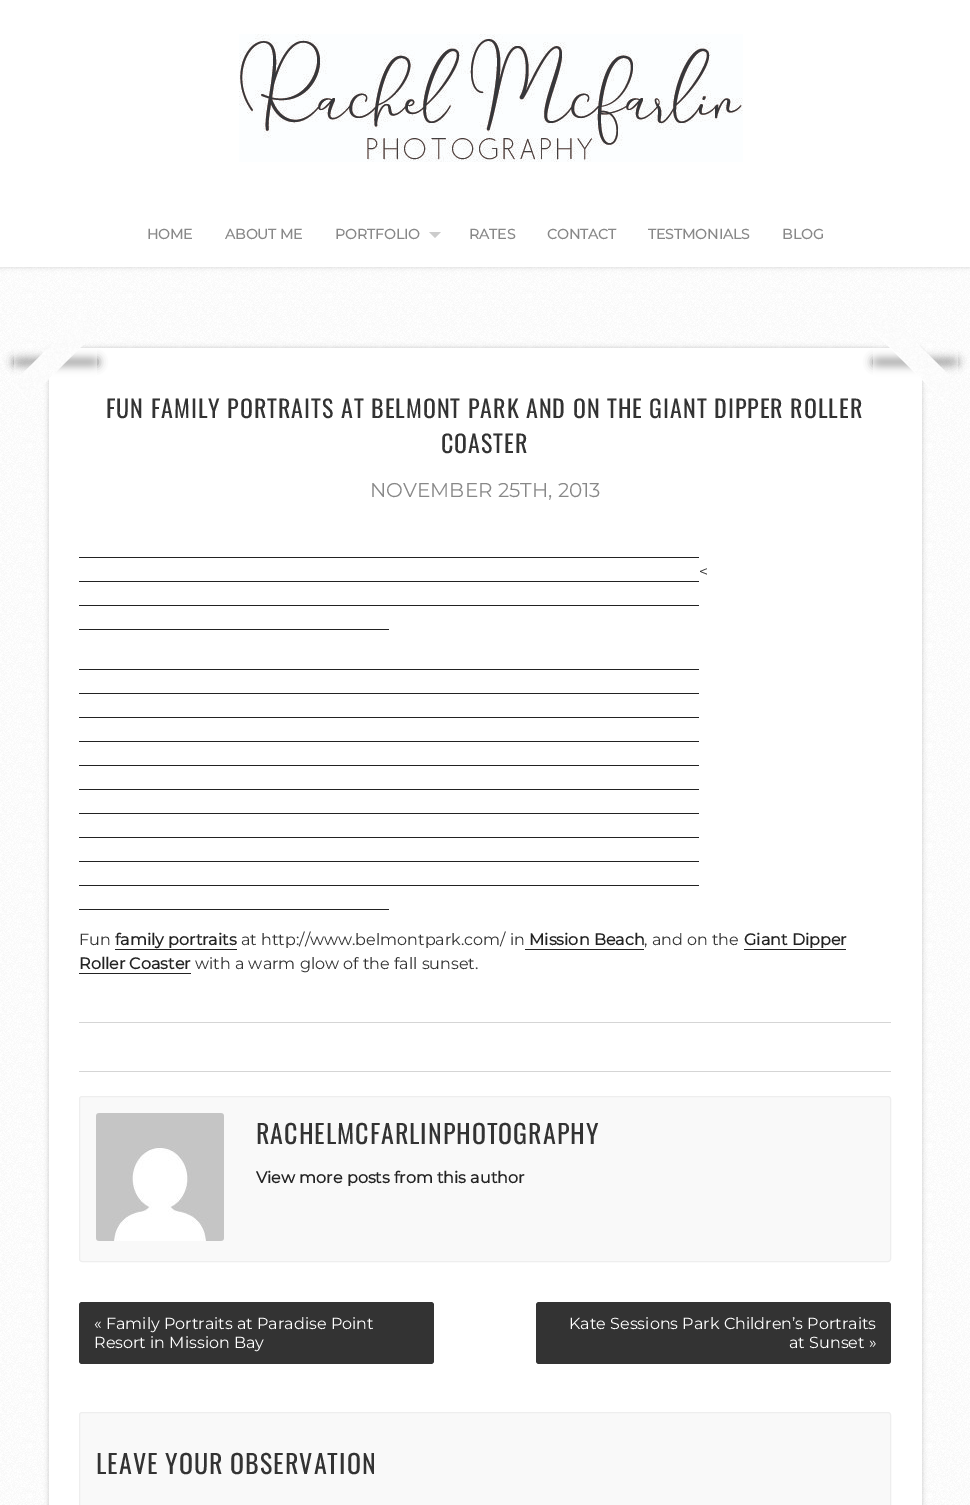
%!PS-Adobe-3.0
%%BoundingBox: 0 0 970 1505
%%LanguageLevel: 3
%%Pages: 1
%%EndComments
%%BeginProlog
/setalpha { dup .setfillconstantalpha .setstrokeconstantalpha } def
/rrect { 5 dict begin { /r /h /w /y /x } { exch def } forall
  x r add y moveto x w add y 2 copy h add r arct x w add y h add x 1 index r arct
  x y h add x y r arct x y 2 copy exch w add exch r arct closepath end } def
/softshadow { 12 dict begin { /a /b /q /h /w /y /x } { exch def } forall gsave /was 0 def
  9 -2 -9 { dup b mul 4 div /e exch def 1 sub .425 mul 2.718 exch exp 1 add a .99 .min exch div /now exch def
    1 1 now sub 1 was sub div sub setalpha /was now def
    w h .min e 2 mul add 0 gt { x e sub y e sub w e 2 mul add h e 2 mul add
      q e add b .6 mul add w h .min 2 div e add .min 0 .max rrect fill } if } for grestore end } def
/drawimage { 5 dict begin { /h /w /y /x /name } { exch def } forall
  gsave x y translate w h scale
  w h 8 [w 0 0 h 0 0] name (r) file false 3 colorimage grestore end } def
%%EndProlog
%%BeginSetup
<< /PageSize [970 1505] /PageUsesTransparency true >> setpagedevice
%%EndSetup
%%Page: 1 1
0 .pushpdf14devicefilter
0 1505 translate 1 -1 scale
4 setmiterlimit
1 setgray
0 0 970 1505 rectfill
(images/1.raw) 0 267 970 1238 drawimage
0 setgray
0 -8 970 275 0 2.5 0.15 softshadow
1 setgray
0 0 970 267 rectfill
(images/2.raw) 239 34 504 128 drawimage
0.8 setgray
newpath 429 232 moveto 441 232 lineto 435 238 lineto closepath fill
0 setgray
49 348 873 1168 3 2.5 0.2 softshadow
1 setgray
49 348 873 1157 rectfill
0 setgray
14 359 84 6 0 4.5 0.5 softshadow
1 setgray
newpath 12 384 moveto 83 313 lineto 99 329 lineto 28 400 lineto closepath fill
(images/3.raw) 14 313 83 86 drawimage
0 setgray
873 359 84 6 0 4.5 0.5 softshadow
1 setgray
newpath 887 313 moveto 958 384 lineto 942 400 lineto 871 329 lineto closepath fill
(images/4.raw) 873 314 85 83 drawimage
0.133 setgray
79 557 620 1 rectfill
79 581 620 1 rectfill
79 605 620 1 rectfill
79 629 310 1 rectfill
79 669 620 1 rectfill
79 693 620 1 rectfill
79 717 620 1 rectfill
79 741 620 1 rectfill
79 765 620 1 rectfill
79 789 620 1 rectfill
79 813 620 1 rectfill
79 837 620 1 rectfill
79 861 620 1 rectfill
79 885 620 1 rectfill
79 909 310 1 rectfill
115 949 122 1 rectfill
525 949 119 1 rectfill
744 949 102 1 rectfill
79 973 112 1 rectfill
0.835 setgray
79 1022 812 1 rectfill
79 1071 812 1 rectfill
0.976 setgray
79.5 1096.5 811 165 2.5 rrect gsave fill grestore
0.933 setgray
stroke
(images/5.raw) 96 1113 128 128 drawimage
0.2 setgray
79 1302 355 62 3 rrect fill
536 1302 355 62 3 rrect fill
0.976 setgray
79.5 1412.5 811 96 2.5 rrect gsave fill grestore
0.933 setgray
stroke
/Montserrat-Bold [14 0 0 -14 0 0] selectfont
0.533 setgray
147 239 moveto (HOME) show
225 239 moveto (ABOUT ME) show
335 239 moveto (PORTFOLIO) show
469 239 moveto (RATES) show
547 239 moveto (CONTACT) show
648 239 moveto (TESTMONIALS) show
782 239 moveto (BLOG) show
/Oswald-Regular [24 0 0 -24 0 0] selectfont
0.2 setgray
106 418 moveto 1 0 (FUN FAMILY PORTRAITS AT BELMONT PARK AND ON THE GIANT DIPPER ROLLER) ashow
441 453 moveto 1 0 (COASTER) ashow
/Montserrat-Thin [20 0 0 -20 0 0] selectfont
0.533 setgray
370 497 moveto (NOVEMBER 25TH, 2013) show
/Montserrat-Thin [16 0 0 -16 0 0] selectfont
0.2 setgray
699 577 moveto (<) show
79 945 moveto (Fun) show
/Montserrat-Bold [16 0 0 -16 0 0] selectfont
0.133 setgray
115 945 moveto (family portraits) show
/Montserrat-Thin [16 0 0 -16 0 0] selectfont
0.2 setgray
241 945 moveto (at http://www.belmontpark.com/ in) show
/Montserrat-Bold [16 0 0 -16 0 0] selectfont
0.133 setgray
529 945 moveto (Mission Beach) show
/Montserrat-Thin [16 0 0 -16 0 0] selectfont
0.2 setgray
644 945 moveto (, and on the) show
/Montserrat-Bold [16 0 0 -16 0 0] selectfont
0.133 setgray
744 945 moveto (Giant Dipper) show
79 969 moveto (Roller Coaster) show
/Montserrat-Thin [16 0 0 -16 0 0] selectfont
0.2 setgray
195 969 moveto (with a warm glow of the fall sunset.) show
/Oswald-Regular [26 0 0 -26 0 0] selectfont
256 1144 moveto 1 0 (RACHELMCFARLINPHOTOGRAPHY) ashow
/Montserrat-Bold [16 0 0 -16 0 0] selectfont
0.133 setgray
256 1183 moveto (View more posts from this author) show
/Montserrat-Thin [16 0 0 -16 0 0] selectfont
1 setgray
94 1329 moveto (« Family Portraits at Paradise Point) show
94 1348 moveto (Resort in Mission Bay) show
569 1329 moveto (Kate Sessions Park Children’s Portraits) show
789 1348 moveto (at Sunset ») show
/Oswald-Regular [26 0 0 -26 0 0] selectfont
0.2 setgray
96 1474 moveto 1 0 (LEAVE YOUR OBSERVATION) ashow
.poppdf14devicefilter showpage
%%EOF
